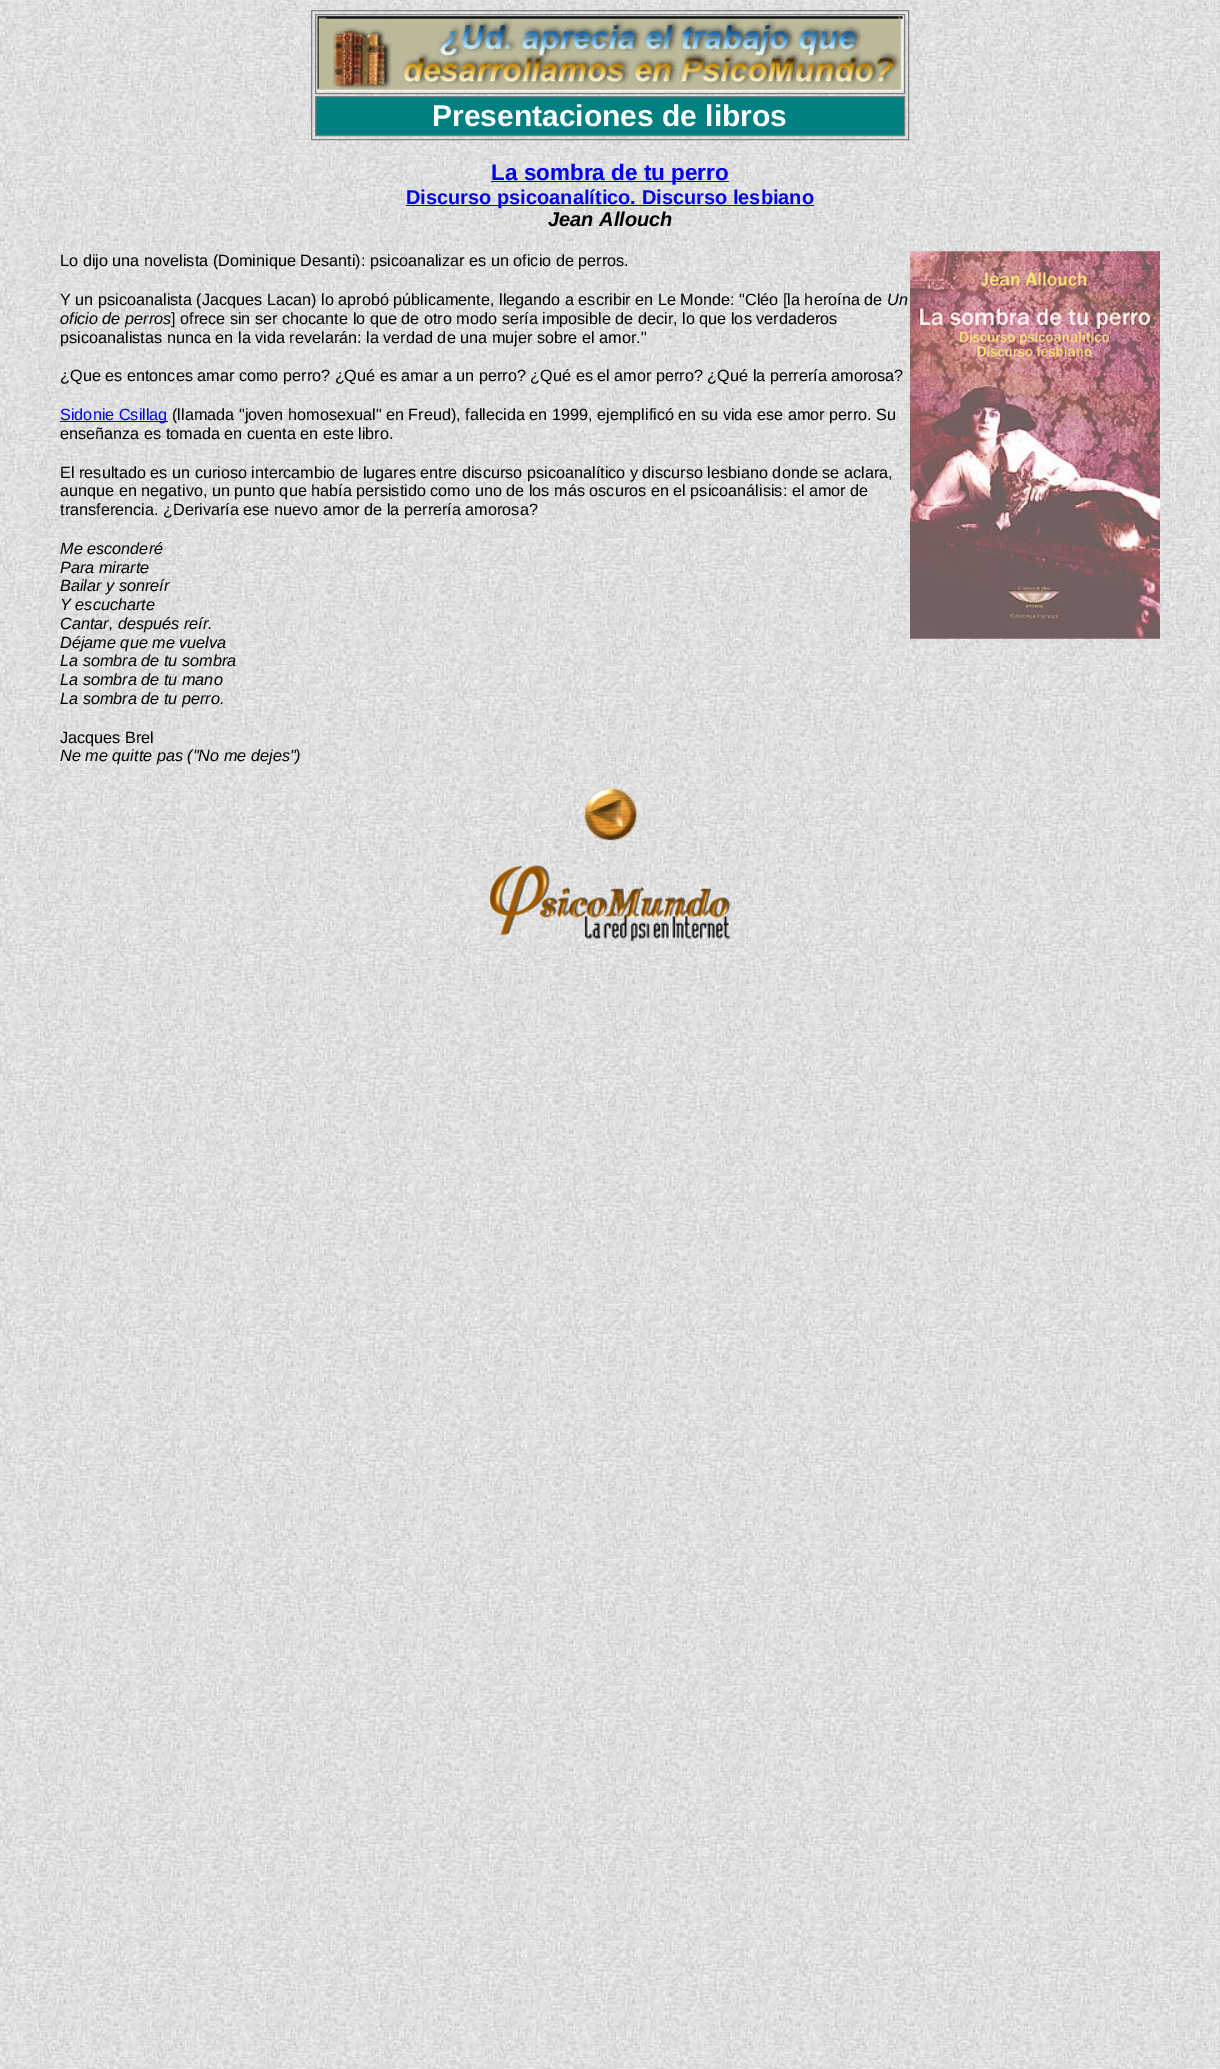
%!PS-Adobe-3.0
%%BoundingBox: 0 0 1220 2069
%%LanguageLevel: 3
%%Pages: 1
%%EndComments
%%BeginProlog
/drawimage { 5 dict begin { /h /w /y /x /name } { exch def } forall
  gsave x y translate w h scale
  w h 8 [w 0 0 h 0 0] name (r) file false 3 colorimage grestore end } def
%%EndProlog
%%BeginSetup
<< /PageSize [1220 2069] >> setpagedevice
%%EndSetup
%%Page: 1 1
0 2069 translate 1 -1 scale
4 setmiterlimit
1 setgray
0 0 1220 2069 rectfill
(images/1.raw) 0 0 1220 2069 drawimage
0.502 setgray
311.5 10.5 597 129 rectstroke
315.5 14.5 589 79 rectstroke
(images/2.raw) 317 16 586 76 drawimage
0 0.502 0.502 setrgbcolor
newpath 315.5 96.5 moveto 904.5 96.5 lineto 904.5 135.5 lineto 315.5 135.5 lineto closepath gsave fill grestore
0.502 setgray
stroke
0 0 0.933 setrgbcolor
491 181 238 1 rectfill
406 205 408 1 rectfill
(images/3.raw) 910 251 250 388 drawimage
60 421 108 1 rectfill
(images/4.raw) 584 788 53 53 drawimage
(images/5.raw) 488 865 243 77 drawimage
/LiberationSans-Bold [30 0 0 -30 0 0] selectfont
1 setgray
432 126 moveto (Presentaciones de libros) show
/LiberationSans-Bold [22.5 0 0 -22.5 0 0] selectfont
0 0 0.933 setrgbcolor
491 180 moveto (La sombra de tu perro) show
/LiberationSans-Bold [20 0 0 -20 0 0] selectfont
406 204 moveto (Discurso psicoanalítico. Discurso lesbiano) show
/LiberationSans-BoldItalic [20 0 0 -20 0 0] selectfont
0 setgray
548 226 moveto (Jean Allouch) show
/LiberationSans-Regular [16.25 0 0 -16.25 0 0] selectfont
60 266 moveto (Lo dijo una novelista \(Dominique Desanti\): psicoanalizar es un oficio de perros.) show
60 305 moveto (Y un psicoanalista \(Jacques Lacan\) lo aprobó públicamente, llegando a escribir en Le Monde: "Cléo [la heroína de) show
/LiberationSans-Italic [16.25 0 0 -16.25 0 0] selectfont
887 305 moveto (Un) show
60 324 moveto (oficio de perros) show
/LiberationSans-Regular [16.25 0 0 -16.25 0 0] selectfont
171 324 moveto (] ofrece sin ser chocante lo que de otro modo sería imposible de decir, lo que los verdaderos) show
60 343 moveto (psicoanalistas nunca en la vida revelarán: la verdad de una mujer sobre el amor.") show
60 381 moveto (¿Que es entonces amar como perro? ¿Qué es amar a un perro? ¿Qué es el amor perro? ¿Qué la perrería amorosa?) show
0 0 0.933 setrgbcolor
60 420 moveto (Sidonie Csillag) show
0 setgray
172 420 moveto (\(llamada "joven homosexual" en Freud\), fallecida en 1999, ejemplificó en su vida ese amor perro. Su) show
60 439 moveto (enseñanza es tomada en cuenta en este libro.) show
60 478 moveto (El resultado es un curioso intercambio de lugares entre discurso psicoanalítico y discurso lesbiano donde se aclara,) show
60 496 moveto (aunque en negativo, un punto que había persistido como uno de los más oscuros en el psicoanálisis: el amor de) show
60 515 moveto (transferencia. ¿Derivaría ese nuevo amor de la perrería amorosa?) show
/LiberationSans-Italic [16.25 0 0 -16.25 0 0] selectfont
60 554 moveto (Me esconderé) show
60 573 moveto (Para mirarte) show
60 591 moveto (Bailar y sonreír) show
60 610 moveto (Y escucharte) show
60 629 moveto (Cantar, después reír.) show
60 648 moveto (Déjame que me vuelva) show
60 666 moveto (La sombra de tu sombra) show
60 685 moveto (La sombra de tu mano) show
60 704 moveto (La sombra de tu perro.) show
/LiberationSans-Regular [16.25 0 0 -16.25 0 0] selectfont
60 743 moveto (Jacques Brel) show
/LiberationSans-Italic [16.25 0 0 -16.25 0 0] selectfont
60 761 moveto (Ne me quitte pas \("No me dejes"\)) show
showpage
%%EOF
